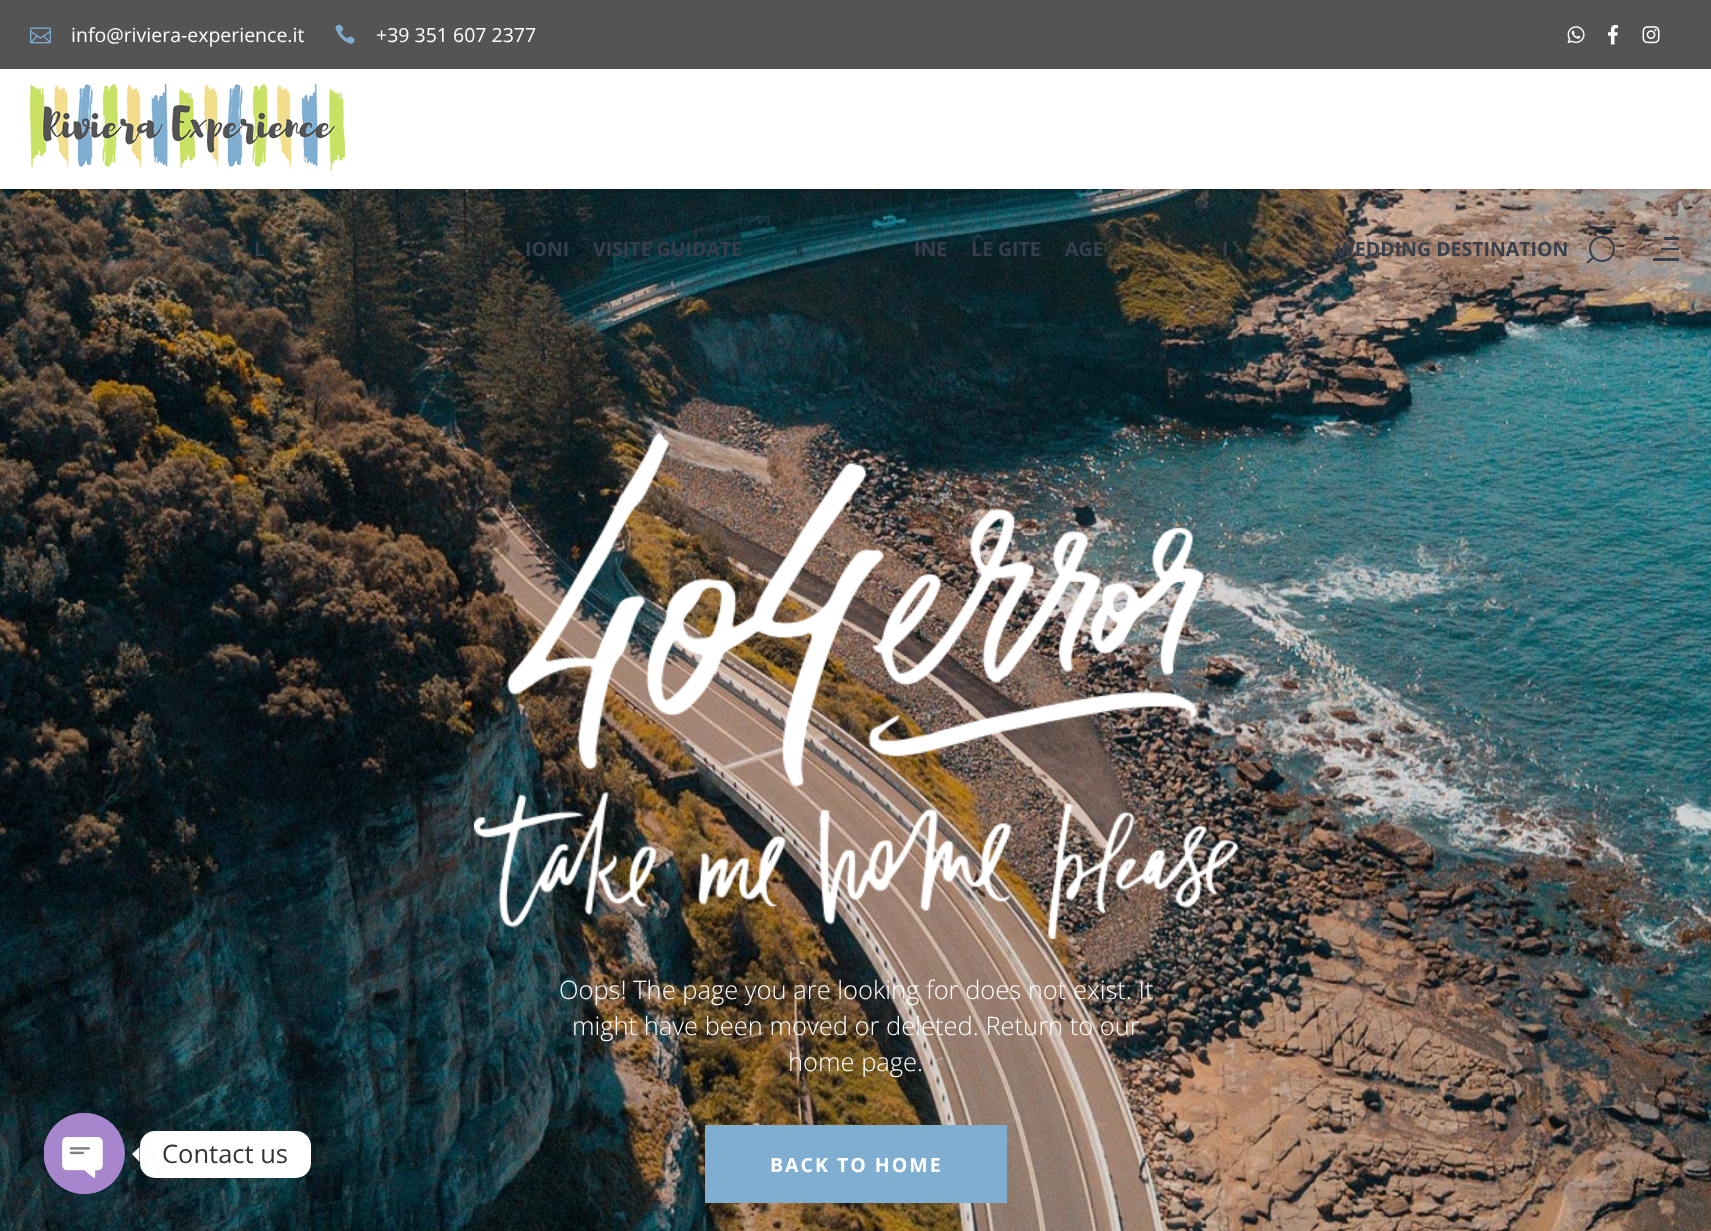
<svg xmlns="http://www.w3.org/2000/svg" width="1711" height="1231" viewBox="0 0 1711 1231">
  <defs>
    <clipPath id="clip1"><path d="M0 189h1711v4H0z"/></clipPath>
  </defs>
  <rect width="100%" height="100%" fill="#fff"/>
  <image x="0" y="189" width="1711" height="1042" href="img/7.png"/>
  <g clip-path="url(#clip1)">
    <path d="M0 71h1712v120H0z" fill="#00000026" filter="blur(2px)"/>
  </g>
  <path d="M0 0h1711v69H0z" fill="#545454"/>
  <image x="30" y="27" width="21" height="17" href="img/1.png"/>
  <image x="335" y="24" width="20" height="20" href="img/2.png"/>
  <image x="1567" y="26" width="18" height="18" href="img/3.png"/>
  <image x="1608" y="24" width="11" height="21" href="img/4.png"/>
  <image x="1642" y="26" width="18" height="18" href="img/5.png"/>
  <image x="30" y="84" width="315" height="88" href="img/6.png"/>
  <circle cx="1602" cy="249" r="12" fill="none" stroke="#373e4c" stroke-width="2.1"/>
  <path d="M1594 257L1587 263" fill="none" stroke="#373e4c" stroke-width="2.1"/>
  <path d="M1664 237h15v3H1664z" fill="#373e4c"/>
  <path d="M1661 248h18v2H1661z" fill="#373e4c"/>
  <path d="M1653 258h26v3H1653z" fill="#373e4c"/>
  <image x="474" y="433" width="764" height="506" href="img/8.png"/>
  <path d="M705 1125h302v78H705z" fill="#80aed1"/>
  <rect x="140" y="1133" width="171" height="46" rx="15" fill="#00000026" filter="blur(6px)"/>
  <rect x="140" y="1131" width="171" height="47" rx="15" fill="#fff"/>
  <path d="M139.5 1147V1162L132 1154Z" fill="#fff"/>
  <rect x="44" y="1137" width="81" height="81" rx="40.5" fill="#49687e29" filter="blur(18px)"/>
  <circle cx="84.5" cy="1153.5" r="40.5" fill="#a886cd"/>
  <image x="44" y="1113" width="72" height="81" href="img/9.png"/>
  <g font-family="Open Sans" font-size="19.5" fill="#fff">
    <text x="71" y="42">info@riviera-experience.it</text>
    <text x="376" y="42">+39 351 607 2377</text>
  </g>
  <g font-family="Open Sans" font-size="19.5" font-weight="bold" fill="#373e4c">
    <text x="254" y="256">L</text>
    <text x="525" y="256">IONI</text>
    <text x="593" y="256">VISITE GUIDATE</text>
    <text x="914" y="256">INE</text>
    <text x="971" y="256">LE GITE</text>
    <text x="1065" y="256">AGE</text>
    <text x="1222" y="256">I</text>
    <text x="1336" y="256">WEDDING DESTINATION</text>
  </g>
  <g font-family="Open Sans" font-size="25.5" font-weight="300" fill="#fff">
    <text x="559" y="999">Oops! The page you are looking for does not exist. It</text>
    <text x="572" y="1035">might have been moved or deleted. Return to our</text>
    <text x="788" y="1071">home page.</text>
  </g>
  <text x="770" y="1172" font-family="Open Sans" font-size="19.5" font-weight="bold" letter-spacing="2" fill="#fff">BACK TO HOME</text>
  <text x="162" y="1163" font-family="Open Sans" font-size="25.5" fill="#333">Contact us</text>
</svg>
